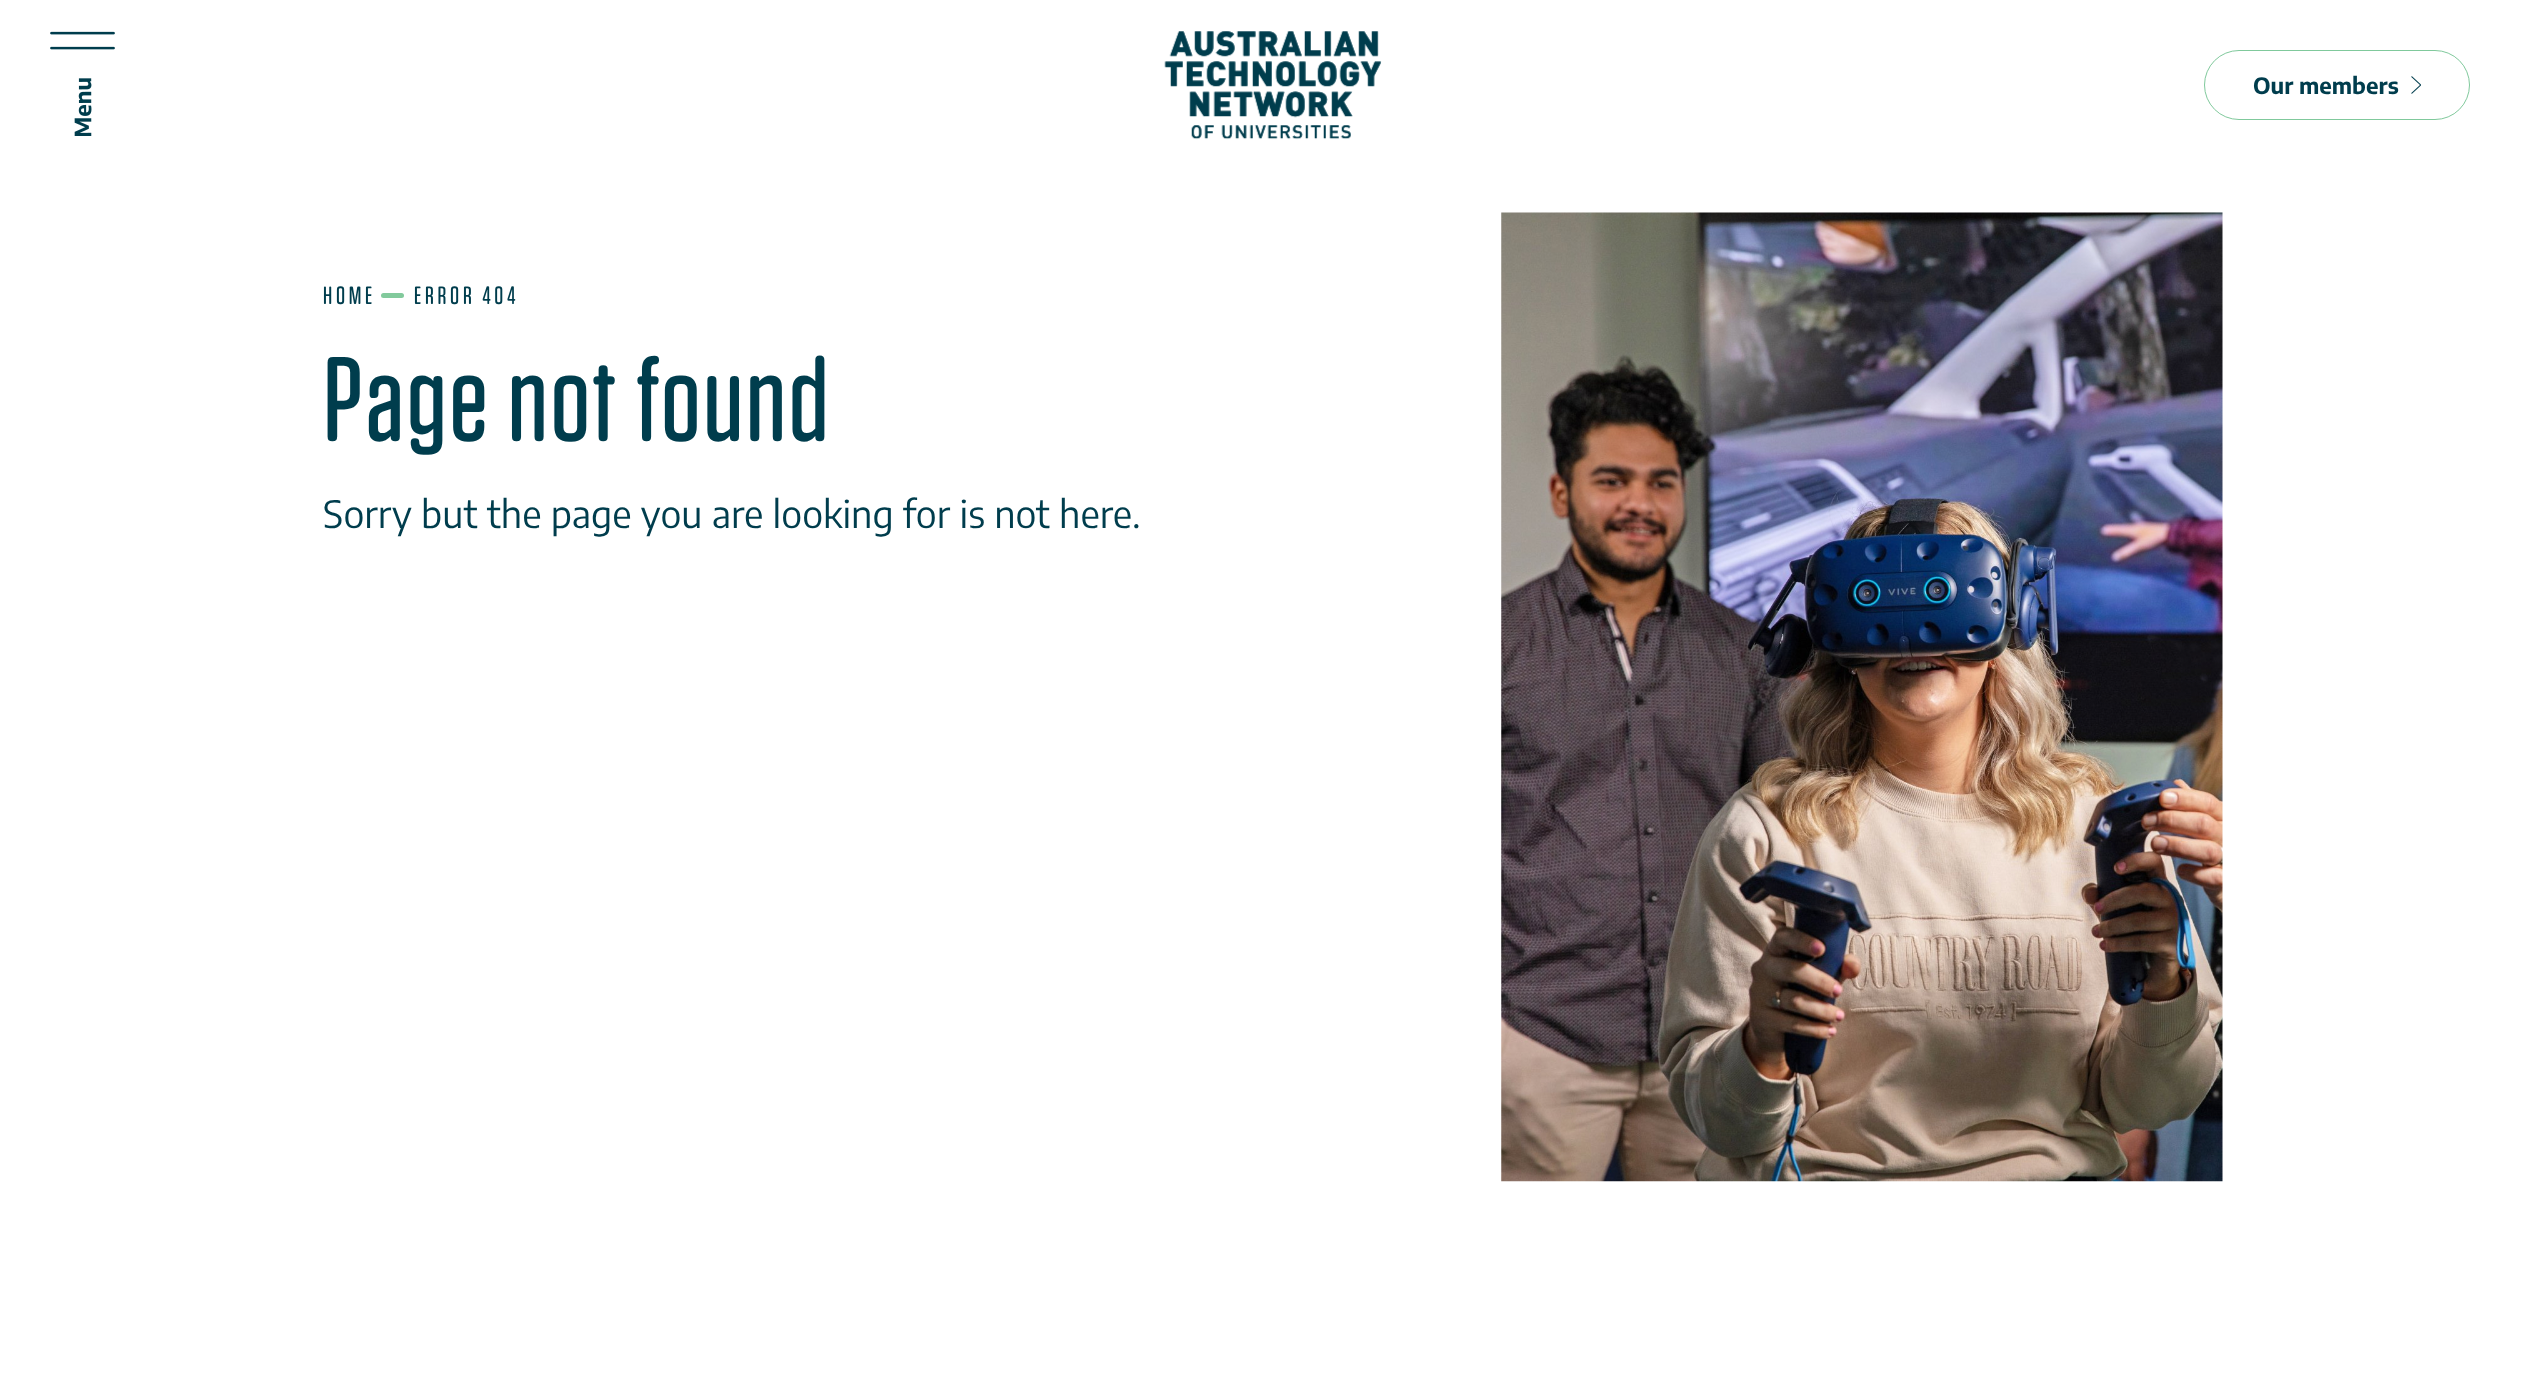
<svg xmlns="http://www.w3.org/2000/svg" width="2544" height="1381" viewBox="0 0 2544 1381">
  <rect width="100%" height="100%" fill="#fff"/>
  <image x="50" y="31" width="65" height="105" href="img/1.png"/>
  <image x="1164" y="31" width="218" height="109" href="img/2.png"/>
  <rect x="2204.5" y="50.5" width="265" height="69" rx="34.5" fill="none" stroke="#80c99c"/>
  <image x="2411" y="76" width="10" height="18" href="img/3.png"/>
  <rect x="381" y="293" width="23" height="5" rx="2.5" fill="#82ca9c"/>
  <image x="1501" y="212" width="722" height="970" href="img/4.png"/>
  <text x="2253" y="94" font-family="Encode Sans Condensed" font-size="22.5" font-weight="bold" fill="#003d4d">Our members</text>
  <g font-family="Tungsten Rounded" font-size="25" font-weight="500" letter-spacing="3.75" fill="#003d4d">
    <text x="323" y="304">HOME</text>
    <text x="414" y="304">ERROR 404</text>
  </g>
  <text x="323" y="441" font-family="Tungsten Rounded" font-size="120" font-weight="500" letter-spacing="2.7" fill="#003d4d">Page not found</text>
  <text x="323" y="528" font-family="Encode Sans Condensed" font-size="37.5" fill="#003d4d">Sorry but the page you are looking for is not here.</text>
</svg>
